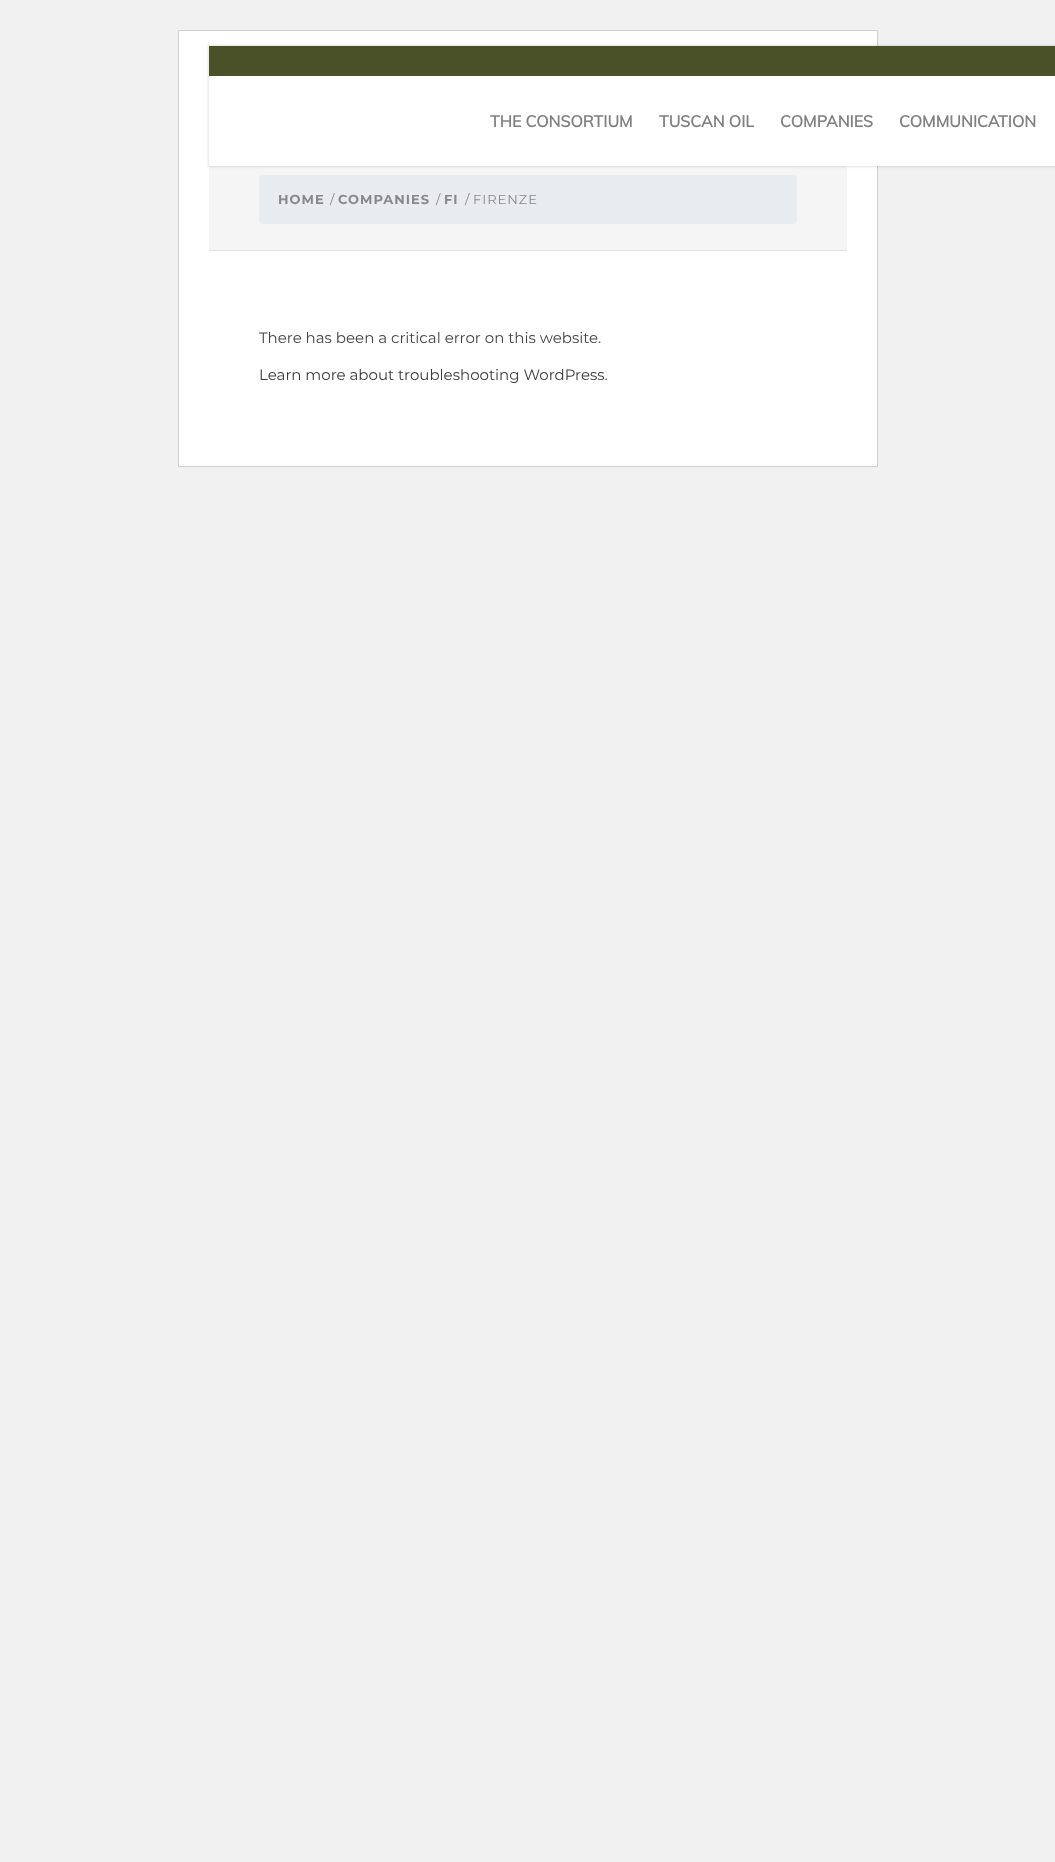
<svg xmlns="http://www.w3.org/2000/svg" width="1055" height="1862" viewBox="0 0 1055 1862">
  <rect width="100%" height="100%" fill="#f1f1f1"/>
  <path d="M178.5 30.5h699v436H178.5z" fill="#fff" stroke="#ccd0d4"/>
  <path d="M209 166h638v84H209z" fill="#f5f5f5"/>
  <path d="M208 45h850v122H208z" fill="#0000001a" filter="blur(1px)"/>
  <path d="M209 46h846v30H209z" fill="#4a5129"/>
  <path d="M209 76h846v90H209z" fill="#fff"/>
  <rect x="259" y="175" width="538" height="49" rx="4" fill="#e9ecef"/>
  <path d="M209 250h638v1H209z" fill="#e1e1e1"/>
  <g font-family="Muli" font-size="16" font-weight="bold" fill="#808080">
    <text x="490" y="127">THE CONSORTIUM</text>
    <text x="659" y="127">TUSCAN OIL</text>
    <text x="780" y="127">COMPANIES</text>
    <text x="899" y="127">COMMUNICATION</text>
  </g>
  <text x="278" y="204" font-family="Montserrat" font-size="13" font-weight="bold" letter-spacing="1" fill="#888">HOME</text>
  <text x="330" y="204" font-family="Montserrat" font-size="13" font-weight="100" letter-spacing="1" fill="#888">/</text>
  <text x="338" y="204" font-family="Montserrat" font-size="13" font-weight="bold" letter-spacing="1" fill="#888">COMPANIES</text>
  <text x="436" y="204" font-family="Montserrat" font-size="13" font-weight="100" letter-spacing="1" fill="#888">/</text>
  <text x="444" y="204" font-family="Montserrat" font-size="13" font-weight="bold" letter-spacing="1" fill="#888">FI</text>
  <g font-family="Montserrat" font-size="13" font-weight="100" letter-spacing="1" fill="#888">
    <text x="465" y="204">/</text>
    <text x="473" y="204">FIRENZE</text>
  </g>
  <text x="259" y="343" font-family="Montserrat" font-size="15" font-weight="100" fill="#444">There has been a critical error on this website.</text>
  <text x="259" y="380" font-family="Montserrat" font-size="15" font-weight="100" fill="#3a3a3a">Learn more about troubleshooting WordPress.</text>
</svg>
